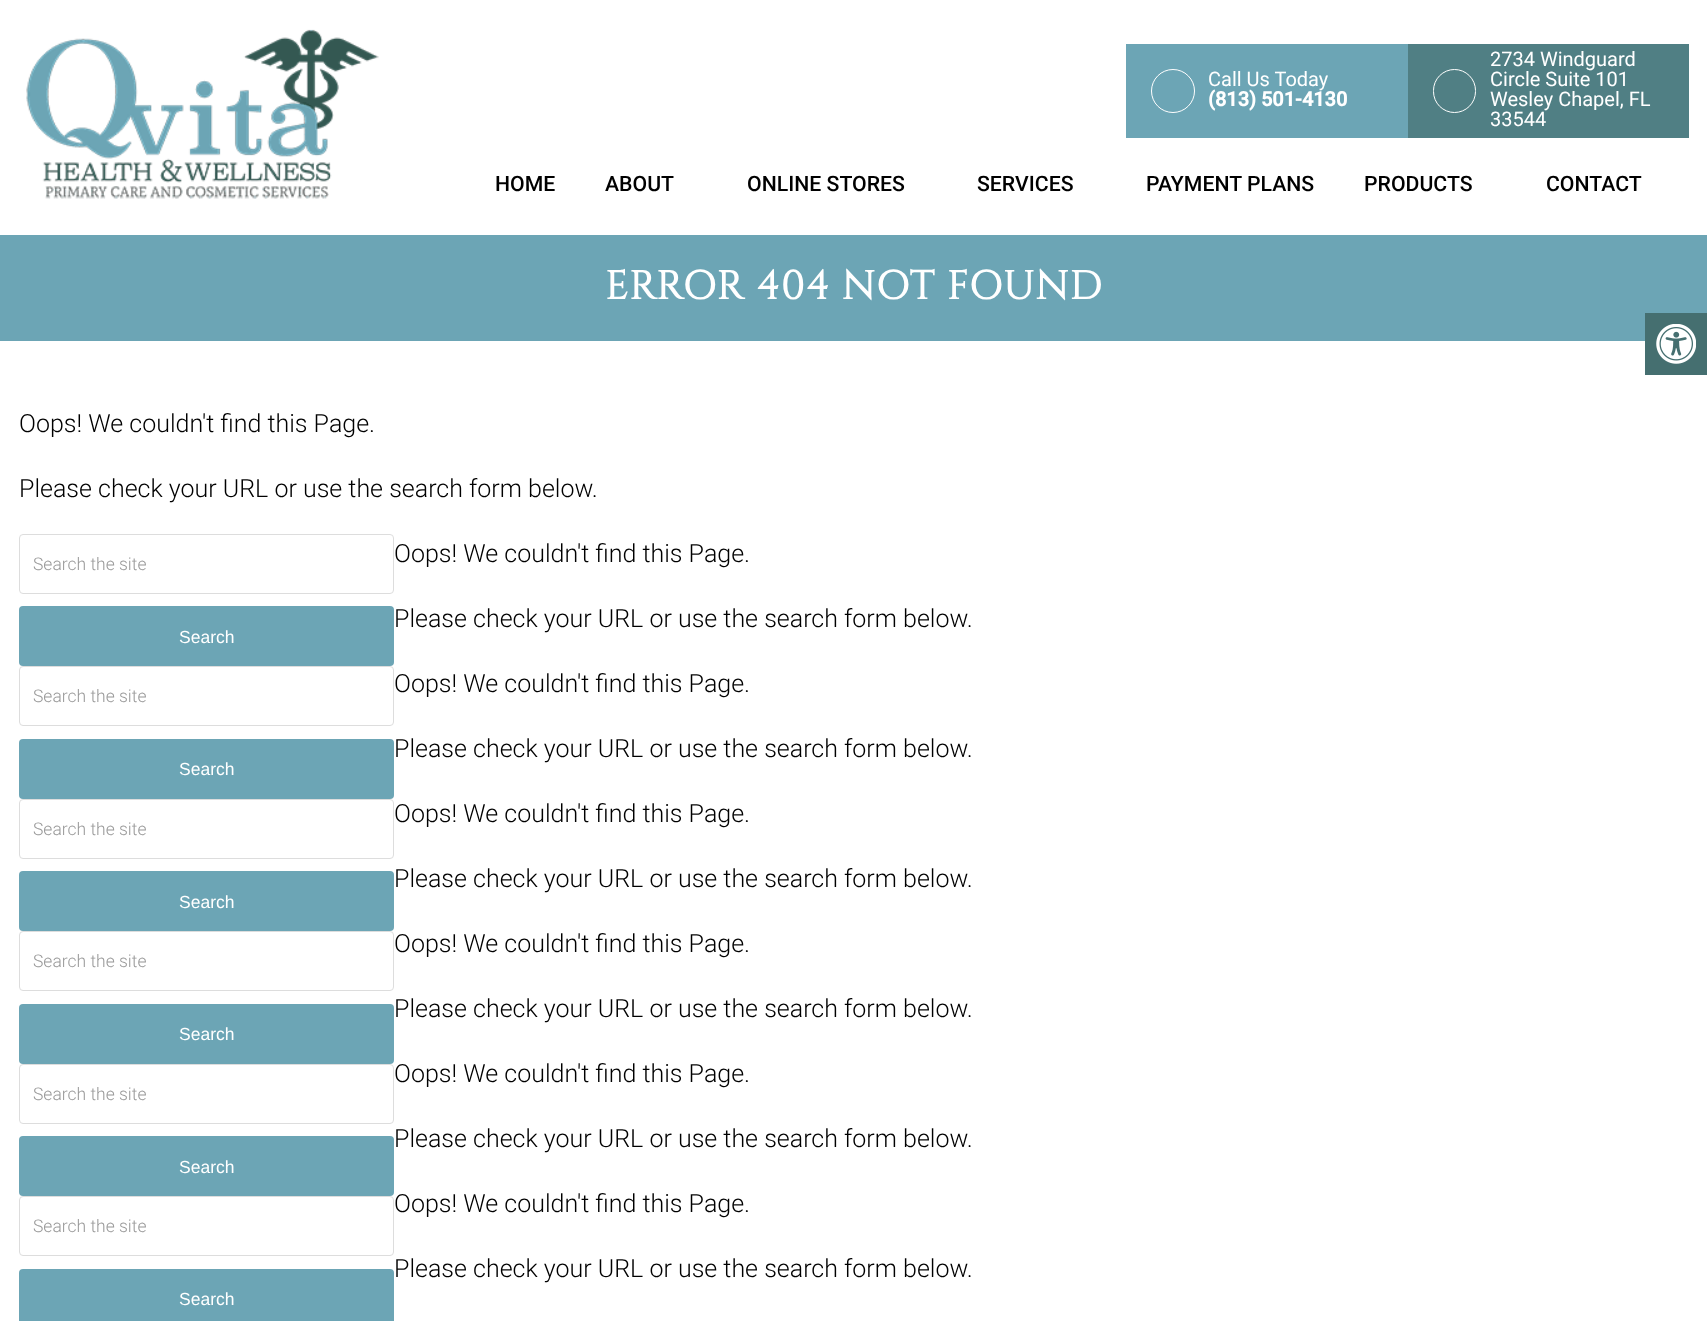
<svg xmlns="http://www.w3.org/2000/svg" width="1707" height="1321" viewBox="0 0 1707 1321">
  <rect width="100%" height="100%" fill="#fff"/>
  <image x="26" y="29" width="353" height="170" href="img/1.png"/>
  <path d="M1126 44h282v94H1126z" fill="#6ca5b5"/>
  <circle cx="1173" cy="91" r="21.5" fill="none" stroke="#fff"/>
  <path d="M1408 44h281v94H1408z" fill="#507f84"/>
  <rect x="1433.5" y="69.5" width="42" height="43" rx="21" fill="none" stroke="#fff"/>
  <path d="M0 235h1707v106H0z" fill="#6ca5b5"/>
  <rect x="19.5" y="534.5" width="374" height="59" rx="3.5" fill="none" stroke="#ddd"/>
  <rect x="19" y="606" width="375" height="60" rx="4" fill="#6ca5b5"/>
  <rect x="19.5" y="666.5" width="374" height="59" rx="3.5" fill="none" stroke="#ddd"/>
  <rect x="19" y="739" width="375" height="60" rx="4" fill="#6ca5b5"/>
  <rect x="19.5" y="799.5" width="374" height="59" rx="3.5" fill="none" stroke="#ddd"/>
  <rect x="19" y="871" width="375" height="60" rx="4" fill="#6ca5b5"/>
  <rect x="19.5" y="931.5" width="374" height="59" rx="3.5" fill="none" stroke="#ddd"/>
  <rect x="19" y="1004" width="375" height="60" rx="4" fill="#6ca5b5"/>
  <rect x="19.5" y="1064.5" width="374" height="59" rx="3.5" fill="none" stroke="#ddd"/>
  <rect x="19" y="1136" width="375" height="60" rx="4" fill="#6ca5b5"/>
  <rect x="19.5" y="1196.5" width="374" height="59" rx="3.5" fill="none" stroke="#ddd"/>
  <rect x="19" y="1269" width="375" height="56" rx="4" fill="#6ca5b5"/>
  <path d="M1645 313h62v62H1645z" fill="#456f70"/>
  <image x="1656" y="324" width="40" height="40" href="img/2.png"/>
  <text x="1208" y="86" font-family="Roboto" font-size="20" fill="#fff">Call Us Today</text>
  <text x="1208" y="106" font-family="Roboto" font-size="20" font-weight="bold" fill="#fff">(813) 501-4130</text>
  <g font-family="Roboto" font-size="20" fill="#fff">
    <text x="1490" y="66">2734 Windguard</text>
    <text x="1490" y="86">Circle Suite 101</text>
    <text x="1490" y="106">Wesley Chapel, FL</text>
    <text x="1490" y="126">33544</text>
  </g>
  <g font-family="Roboto" font-size="21.25" font-weight="500" fill="#000">
    <text x="495" y="191">HOME</text>
    <text x="605" y="191">ABOUT</text>
    <text x="747" y="191">ONLINE STORES</text>
    <text x="977" y="191">SERVICES</text>
    <text x="1146" y="191">PAYMENT PLANS</text>
    <text x="1364" y="191">PRODUCTS</text>
    <text x="1546" y="191">CONTACT</text>
  </g>
  <text x="605" y="299" font-family="Cinzel" font-size="40" font-weight="bold" letter-spacing="1.25" fill="#fff">ERROR 404 NOT FOUND</text>
  <g font-family="Roboto" font-size="25" font-weight="300" fill="#000">
    <text x="19" y="432">Oops! We couldn't find this Page.</text>
    <text x="19" y="497">Please check your URL or use the search form below.</text>
  </g>
  <text x="33" y="570" font-family="Roboto" font-size="17.5" font-weight="300" fill="#999">Search the site</text>
  <text x="179" y="643" font-family="Liberation Sans" font-size="17.5" fill="#fff">Search</text>
  <g font-family="Roboto" font-size="25" font-weight="300" fill="#000">
    <text x="394" y="562">Oops! We couldn't find this Page.</text>
    <text x="394" y="627">Please check your URL or use the search form below.</text>
  </g>
  <text x="33" y="702" font-family="Roboto" font-size="17.5" font-weight="300" fill="#999">Search the site</text>
  <text x="179" y="775" font-family="Liberation Sans" font-size="17.5" fill="#fff">Search</text>
  <g font-family="Roboto" font-size="25" font-weight="300" fill="#000">
    <text x="394" y="692">Oops! We couldn't find this Page.</text>
    <text x="394" y="757">Please check your URL or use the search form below.</text>
  </g>
  <text x="33" y="835" font-family="Roboto" font-size="17.5" font-weight="300" fill="#999">Search the site</text>
  <text x="179" y="908" font-family="Liberation Sans" font-size="17.5" fill="#fff">Search</text>
  <g font-family="Roboto" font-size="25" font-weight="300" fill="#000">
    <text x="394" y="822">Oops! We couldn't find this Page.</text>
    <text x="394" y="887">Please check your URL or use the search form below.</text>
  </g>
  <text x="33" y="967" font-family="Roboto" font-size="17.5" font-weight="300" fill="#999">Search the site</text>
  <text x="179" y="1040" font-family="Liberation Sans" font-size="17.5" fill="#fff">Search</text>
  <g font-family="Roboto" font-size="25" font-weight="300" fill="#000">
    <text x="394" y="952">Oops! We couldn't find this Page.</text>
    <text x="394" y="1017">Please check your URL or use the search form below.</text>
  </g>
  <text x="33" y="1100" font-family="Roboto" font-size="17.5" font-weight="300" fill="#999">Search the site</text>
  <text x="179" y="1173" font-family="Liberation Sans" font-size="17.5" fill="#fff">Search</text>
  <g font-family="Roboto" font-size="25" font-weight="300" fill="#000">
    <text x="394" y="1082">Oops! We couldn't find this Page.</text>
    <text x="394" y="1147">Please check your URL or use the search form below.</text>
  </g>
  <text x="33" y="1232" font-family="Roboto" font-size="17.5" font-weight="300" fill="#999">Search the site</text>
  <text x="179" y="1305" font-family="Liberation Sans" font-size="17.5" fill="#fff">Search</text>
  <g font-family="Roboto" font-size="25" font-weight="300" fill="#000">
    <text x="394" y="1212">Oops! We couldn't find this Page.</text>
    <text x="394" y="1277">Please check your URL or use the search form below.</text>
  </g>
</svg>
